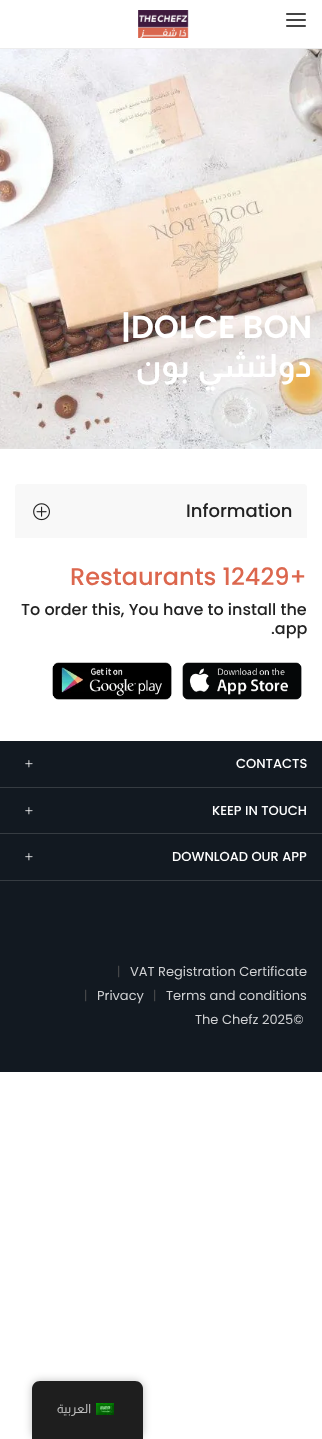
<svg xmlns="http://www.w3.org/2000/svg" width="322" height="1439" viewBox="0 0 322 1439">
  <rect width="100%" height="100%" fill="#fff"/>
  <path d="M0 48h322v1H0z" fill="#ededed"/>
  <image x="138" y="10" width="51" height="28" href="img/1.png"/>
  <image x="286" y="13" width="20" height="14" href="img/2.png"/>
  <image x="0" y="49" width="322" height="400" href="img/3.png"/>
  <path d="M18 484H304C305.5 484 307 485.5 307 487V538H15V487C15 485.5 16.5 484 18 484Z" fill="#f8f8f8"/>
  <image x="33" y="503" width="17" height="18" href="img/4.png"/>
  <image x="52" y="662" width="120" height="38" href="img/5.png"/>
  <image x="182" y="662" width="120" height="38" href="img/6.png"/>
  <path d="M0 741h322v331H0z" fill="#121921"/>
  <path d="M0 787h322v1H0z" fill="#363c42"/>
  <image x="25" y="760" width="8" height="8" href="img/7.png"/>
  <path d="M0 833h322v1H0z" fill="#363c42"/>
  <image x="25" y="807" width="8" height="8" href="img/7.png"/>
  <path d="M0 880h322v1H0z" fill="#363c42"/>
  <image x="25" y="853" width="8" height="8" href="img/7.png"/>
  <rect x="32" y="1381" width="111" height="58" rx="8" fill="#00000040" filter="blur(4px)"/>
  <path d="M40 1381H135C139.5 1381 143 1384.5 143 1389V1439H32V1389C32 1384.5 35.5 1381 40 1381Z" fill="#1e1e1e"/>
  <image x="96" y="1403" width="18" height="12" href="img/8.png"/>
  <text x="121" y="338" font-family="Poppins" font-size="32" font-weight="600" fill="#fff">|DOLCE BON</text>
  <text x="312" y="377" word-spacing="2" font-family="Almarai" font-size="32" font-weight="bold" direction="rtl" fill="#fff">دولتشي بون</text>
  <text x="186" y="517" font-family="Poppins" font-size="18" font-weight="500" fill="#222">Information</text>
  <text x="70" y="585" font-family="Poppins" font-size="24" font-weight="500" fill="#dc674e">Restaurants 12429+</text>
  <g font-family="Poppins" font-size="16" font-weight="500" fill="#222">
    <text x="21" y="615">To order this, You have to install the</text>
    <text x="271" y="634">.app</text>
  </g>
  <g font-family="Poppins" font-size="13" font-weight="500" fill="#fff">
    <text x="236" y="768">CONTACTS</text>
    <text x="212" y="815">KEEP IN TOUCH</text>
    <text x="172" y="861">DOWNLOAD OUR APP</text>
  </g>
  <text x="117" y="976" font-family="Poppins" font-size="13" font-weight="300" fill="#555">|</text>
  <text x="130" y="976" font-family="Poppins" font-size="13" fill="#d0d1d3">VAT Registration Certificate</text>
  <text x="84" y="1000" font-family="Poppins" font-size="13" font-weight="300" fill="#555">|</text>
  <text x="97" y="1000" font-family="Poppins" font-size="13" fill="#d0d1d3">Privacy</text>
  <text x="153" y="1000" font-family="Poppins" font-size="13" font-weight="300" fill="#555">|</text>
  <g font-family="Poppins" font-size="13" fill="#d0d1d3">
    <text x="166" y="1000">Terms and conditions</text>
    <text x="195" y="1024">The Chefz 2025©</text>
  </g>
  <text x="91" y="1413" font-family="Almarai" font-size="12.5" direction="rtl" fill="#bdbdbd">العربية</text>
</svg>
